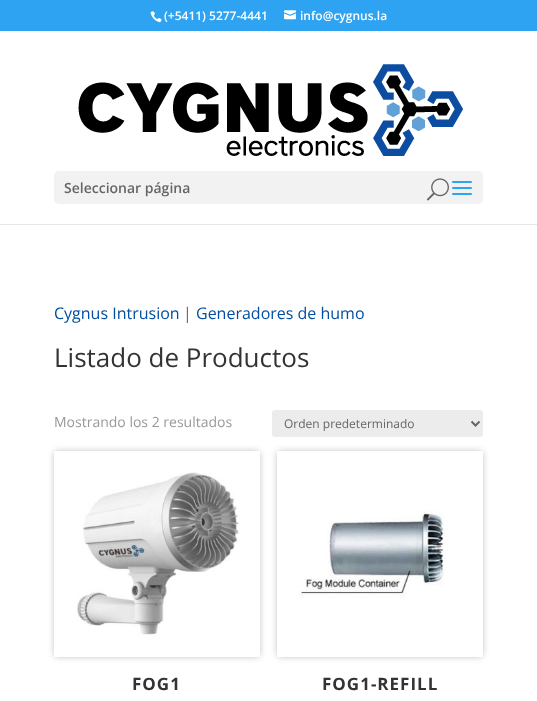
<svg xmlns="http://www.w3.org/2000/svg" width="537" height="701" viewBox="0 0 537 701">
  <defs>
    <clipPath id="clip1"><path d="M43 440H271V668H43ZM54 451H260V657H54Z" clip-rule="evenodd"/></clipPath>
    <clipPath id="clip2"><path d="M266 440H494V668H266ZM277 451H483V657H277Z" clip-rule="evenodd"/></clipPath>
  </defs>
  <rect width="100%" height="100%" fill="#fff"/>
  <path d="M0 0h537v31H0z" fill="#2ea3f2"/>
  <image x="150" y="11" width="12" height="12" href="img/1.png"/>
  <image x="284" y="10" width="12" height="10" href="img/2.png"/>
  <path d="M0 224h537v1H0z" fill="#e6e6e6"/>
  <image x="78" y="64" width="385" height="92" href="img/3.png"/>
  <rect x="54" y="171" width="429" height="33" rx="5" fill="#f2f2f2"/>
  <image x="452" y="181" width="20" height="14" href="img/4.png"/>
  <image x="426" y="178" width="23" height="23" href="img/5.png"/>
  <rect x="272" y="410" width="211" height="27" rx="3" fill="#ececec"/>
  <path d="M471.5 421.5L475.5 425.5L479.5 421.5" fill="none" stroke="#666" stroke-width="2"/>
  <g clip-path="url(#clip1)">
    <path d="M55 452h204v204H55z" fill="#0000004d" filter="blur(3.5px)"/>
  </g>
  <image x="76" y="472" width="165" height="164" href="img/6.png"/>
  <g clip-path="url(#clip2)">
    <path d="M278 452h204v204H278z" fill="#0000004d" filter="blur(3.5px)"/>
  </g>
  <image x="299" y="510" width="147" height="88" href="img/7.png"/>
  <g font-family="Open Sans" font-size="12" font-weight="600" fill="#fff">
    <text x="164" y="20">(+5411) 5277-4441</text>
    <text x="300" y="20">info@cygnus.la</text>
  </g>
  <text x="64" y="193" font-family="Open Sans" font-size="14" font-weight="600" fill="#666">Seleccionar página</text>
  <text x="54" y="319" font-family="Open Sans" font-size="16" fill="#034ea2">Cygnus Intrusion</text>
  <text x="183" y="319" font-family="Open Sans" font-size="16" fill="#666">|</text>
  <text x="196" y="319" font-family="Open Sans" font-size="16" fill="#034ea2">Generadores de humo</text>
  <text x="54" y="367" font-family="Open Sans" font-size="26" fill="#333">Listado de Productos</text>
  <text x="54" y="427" font-family="Open Sans" font-size="14" fill="#999">Mostrando los 2 resultados</text>
  <text x="284" y="428" font-family="Open Sans" font-size="12" fill="#666">Orden predeterminado</text>
  <g font-family="Open Sans" font-size="17" font-weight="bold" letter-spacing="1" fill="#333">
    <text x="132" y="690">FOG1</text>
    <text x="322" y="690">FOG1-REFILL</text>
  </g>
</svg>
